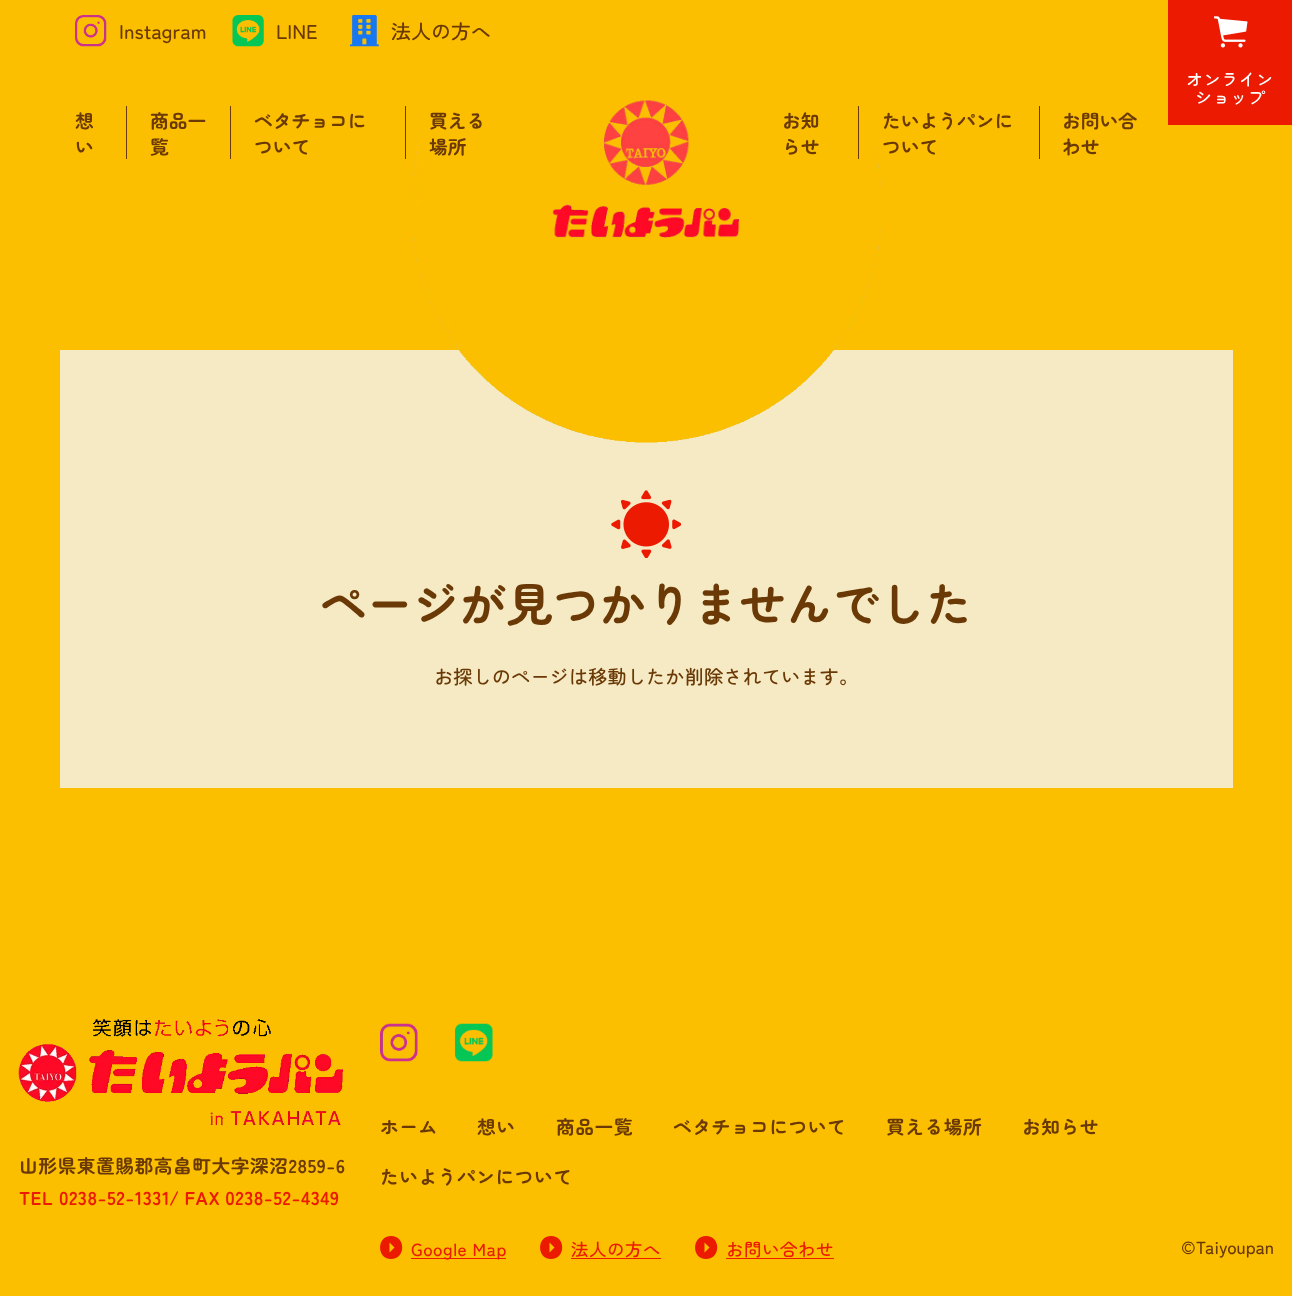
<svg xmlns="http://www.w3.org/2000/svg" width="1292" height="1296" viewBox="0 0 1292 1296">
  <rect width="100%" height="100%" fill="#fbbf00"/>
  <image x="75" y="15" width="32" height="32" href="img/1.png"/>
  <image x="232" y="15" width="32" height="32" href="img/2.png"/>
  <image x="350" y="15" width="29" height="32" href="img/3.png"/>
  <path d="M60 350h1173v438H60z" fill="#f5eac4"/>
  <image x="410" y="145" width="472" height="298" href="img/6.png"/>
  <image x="552" y="100" width="188" height="138" href="img/4.png"/>
  <path d="M126 106h1v53H126z" fill="#6a3906"/>
  <path d="M230 106h1v53H230z" fill="#6a3906"/>
  <path d="M405 106h1v53H405z" fill="#6a3906"/>
  <path d="M858 106h1v53H858z" fill="#6a3906"/>
  <path d="M1039 106h1v53H1039z" fill="#6a3906"/>
  <path d="M1168 0h124v125H1168z" fill="#eb1a00"/>
  <image x="1214" y="16" width="34" height="32" href="img/5.png"/>
  <image x="611" y="490" width="70" height="68" href="img/7.png"/>
  <image x="18" y="1019" width="325" height="107" href="img/8.png"/>
  <image x="380" y="1023" width="38" height="39" href="img/9.png"/>
  <image x="455" y="1023" width="38" height="39" href="img/10.png"/>
  <path d="M391 1259C406 1259 406 1236 391 1236C376.5 1236 376.5 1259 391 1259ZM389.5 1252.5V1242.5L394.5 1247.5Z" fill="#eb1a00"/>
  <path d="M411 1258h95v1H411z" fill="#eb1a00"/>
  <path d="M551 1259C566 1259 566 1236 551 1236C536.5 1236 536.5 1259 551 1259ZM549.5 1252.5V1242.5L554.5 1247.5Z" fill="#eb1a00"/>
  <path d="M571 1258h90v1H571z" fill="#eb1a00"/>
  <path d="M706 1259C721 1259 721 1236 706 1236C691.5 1236 691.5 1259 706 1259ZM704.5 1252.5V1242.5L709.5 1247.5Z" fill="#eb1a00"/>
  <path d="M726 1258h108v1H726z" fill="#eb1a00"/>
  <g font-family="Zen Maru Gothic" font-size="20" font-weight="500" fill="#6a3906">
    <text x="119" y="39">Instagram</text>
    <text x="276" y="39">LINE</text>
    <text x="391" y="39">法人の方へ</text>
  </g>
  <g font-family="Zen Maru Gothic" font-size="18.75" font-weight="bold" fill="#6a3906">
    <text x="75" y="128">想</text>
    <text x="75" y="154">い</text>
    <text x="150" y="128">商品一</text>
    <text x="150" y="154">覧</text>
    <text x="254" y="128">ベタチョコに</text>
    <text x="254" y="154">ついて</text>
    <text x="429" y="128">買える</text>
    <text x="429" y="154">場所</text>
    <text x="782" y="128">お知</text>
    <text x="782" y="154">らせ</text>
    <text x="882" y="128">たいようパンに</text>
    <text x="882" y="154">ついて</text>
    <text x="1062" y="128">お問い合</text>
    <text x="1062" y="154">わせ</text>
  </g>
  <g font-family="Zen Maru Gothic" font-size="17.5" font-weight="500" fill="#fff">
    <text x="1186" y="86">オンライン</text>
    <text x="1195" y="104">ショップ</text>
  </g>
  <text x="320" y="622" font-family="Zen Maru Gothic" font-size="46.6" font-weight="bold" fill="#6a3906">ページが見つかりませんでした</text>
  <text x="434" y="684" font-family="Zen Maru Gothic" font-size="19.3" font-weight="500" fill="#6a3906">お探しのページは移動したか削除されています。</text>
  <text x="19" y="1173" font-family="Zen Maru Gothic" font-size="18.75" font-weight="bold" letter-spacing="0.5" fill="#6a3906">山形県東置賜郡高畠町大字深沼2859-6</text>
  <g font-family="Zen Maru Gothic" font-size="18.75" font-weight="bold" letter-spacing="0.5" fill="#eb1a00">
    <text x="19" y="1205">TEL 0238-52-1331</text>
    <text x="169" y="1205" word-spacing="-1">/ FAX 0238-52-4349</text>
  </g>
  <g font-family="Zen Maru Gothic" font-size="18.75" font-weight="bold" letter-spacing="0.5" fill="#6a3906">
    <text x="380" y="1134">ホーム</text>
    <text x="477" y="1134">想い</text>
    <text x="556" y="1134">商品一覧</text>
    <text x="673" y="1134">ベタチョコについて</text>
    <text x="886" y="1134">買える場所</text>
    <text x="1022" y="1134">お知らせ</text>
    <text x="380" y="1184">たいようパンについて</text>
  </g>
  <g font-family="Zen Maru Gothic" font-size="17.5" font-weight="500" letter-spacing="0.5" fill="#eb1a00">
    <text x="411" y="1256">Google Map</text>
    <text x="571" y="1256">法人の方へ</text>
    <text x="726" y="1256">お問い合わせ</text>
  </g>
  <text x="1181" y="1254" font-family="Zen Maru Gothic" font-size="17.5" font-weight="500" fill="#6a3906">©︎Taiyoupan</text>
</svg>
